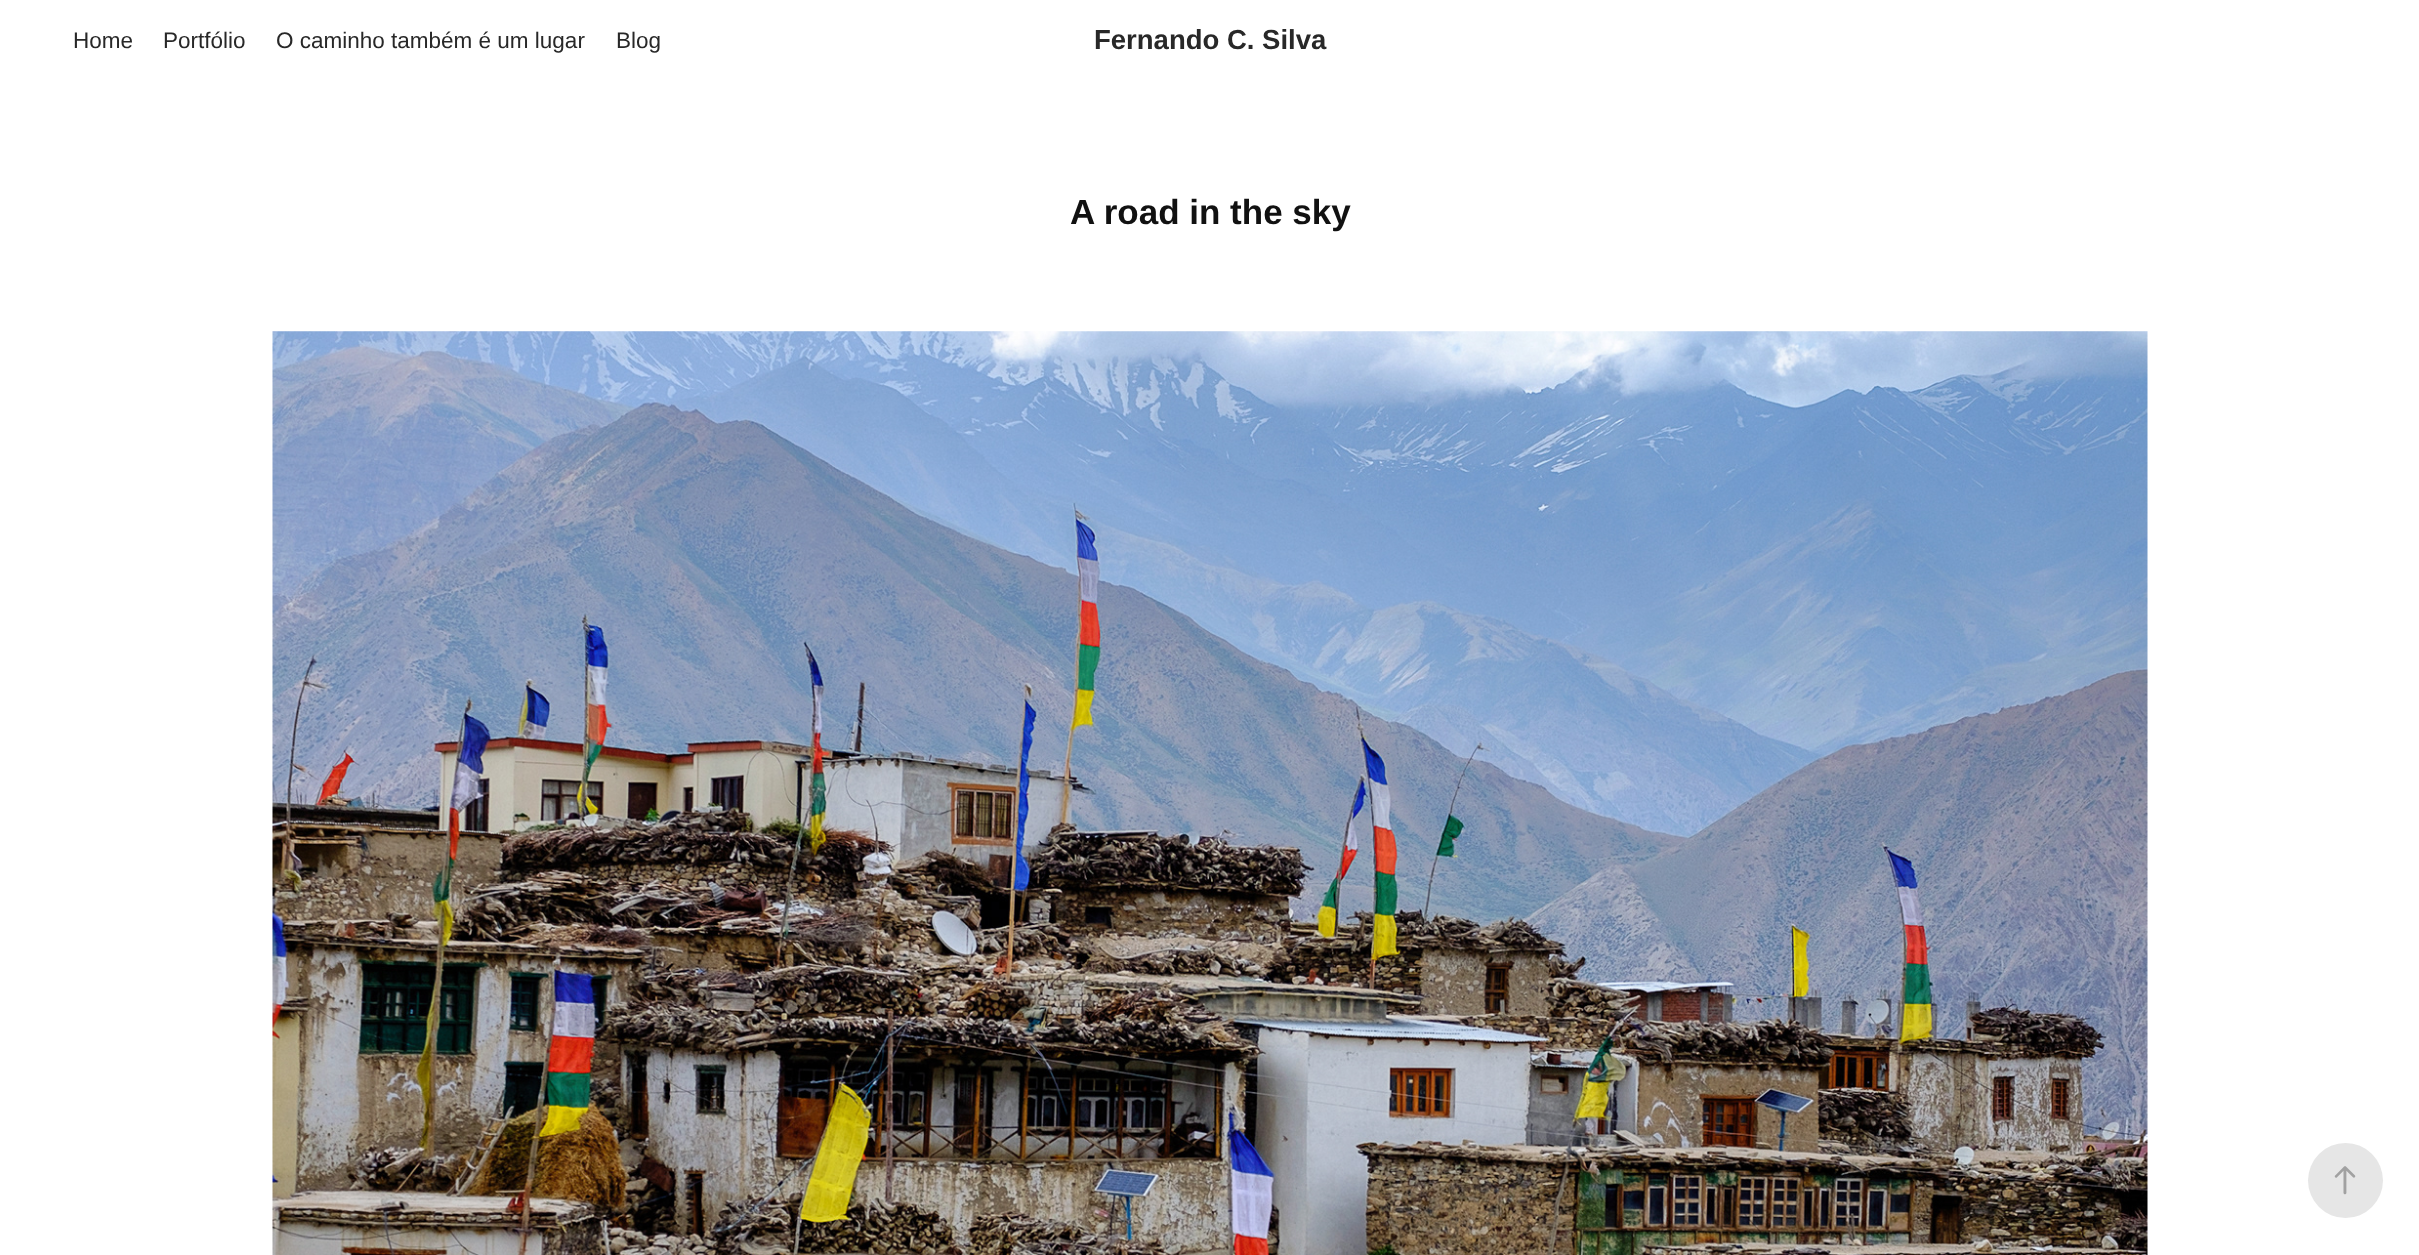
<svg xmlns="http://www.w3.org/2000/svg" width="2419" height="1255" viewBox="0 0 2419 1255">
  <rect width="100%" height="100%" fill="#fff"/>
  <image x="272" y="331" width="1876" height="924" href="img/1.png"/>
  <circle cx="2345.5" cy="1180.5" r="37.5" fill="#e6e6e6"/>
  <image x="2334" y="1166" width="22" height="29" href="img/2.png"/>
  <g font-family="Liberation Sans" font-size="22.5" fill="#282828">
    <text x="73" y="48">Home</text>
    <text x="163" y="48">Portfólio</text>
    <text x="276" y="48">O caminho também é um lugar</text>
    <text x="616" y="48">Blog</text>
  </g>
  <text x="1094" y="49" font-family="Liberation Sans" font-size="27.5" font-weight="bold" fill="#282828">Fernando C. Silva</text>
  <text x="1070" y="224" font-family="Liberation Sans" font-size="35" font-weight="bold" fill="#111">A road in the sky</text>
</svg>
